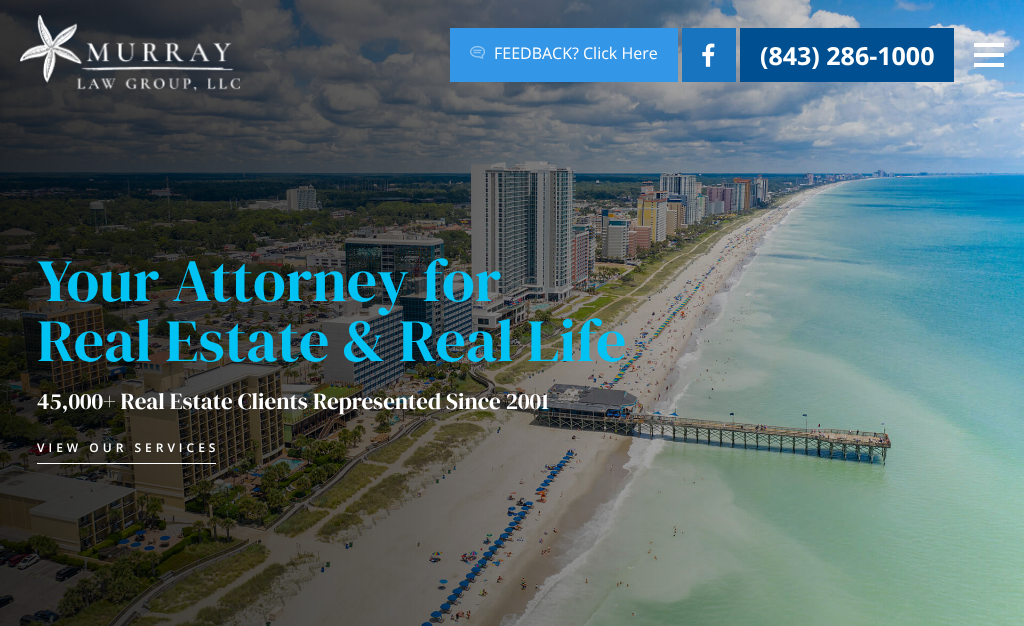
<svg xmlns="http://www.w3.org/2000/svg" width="1024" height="626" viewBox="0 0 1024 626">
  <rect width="100%" height="100%" fill="#fff"/>
  <image x="0" y="0" width="1024" height="626" href="img/4.png"/>
  <image x="20" y="15" width="220" height="76" href="img/1.png"/>
  <path d="M450 28h228v54H450z" fill="#3496e7"/>
  <image x="470" y="46" width="15" height="13" href="img/2.png"/>
  <path d="M682 28h54v54H682z" fill="#1974bf"/>
  <image x="702" y="43" width="13" height="24" href="img/3.png"/>
  <path d="M740 28h214v54H740z" fill="#005091"/>
  <path d="M974 53h30v4H974z" fill="#fff"/>
  <path d="M974 43h30v4H974z" fill="#fff"/>
  <path d="M974 63h30v4H974z" fill="#fff"/>
  <path d="M37 463h179v1H37z" fill="#fff"/>
  <text x="494" y="59" font-family="Open Sans" font-size="16" fill="#fff">FEEDBACK? Click Here</text>
  <text x="760" y="65" font-family="Open Sans" font-size="25" font-weight="bold" fill="#fff">(843) 286-1000</text>
  <g font-family="DM Serif Display" font-size="60" fill="#00c2f3">
    <text x="37" y="301">Your Attorney for</text>
    <text x="37" y="361">Real Estate &amp; Real Life</text>
  </g>
  <text x="37" y="409" font-family="DM Serif Display" font-size="23" fill="#fff">45,000+ Real Estate Clients Represented Since 2001</text>
  <text x="37" y="452" font-family="Open Sans" font-size="12" font-weight="600" letter-spacing="4" fill="#fff">VIEW OUR SERVICES</text>
</svg>
